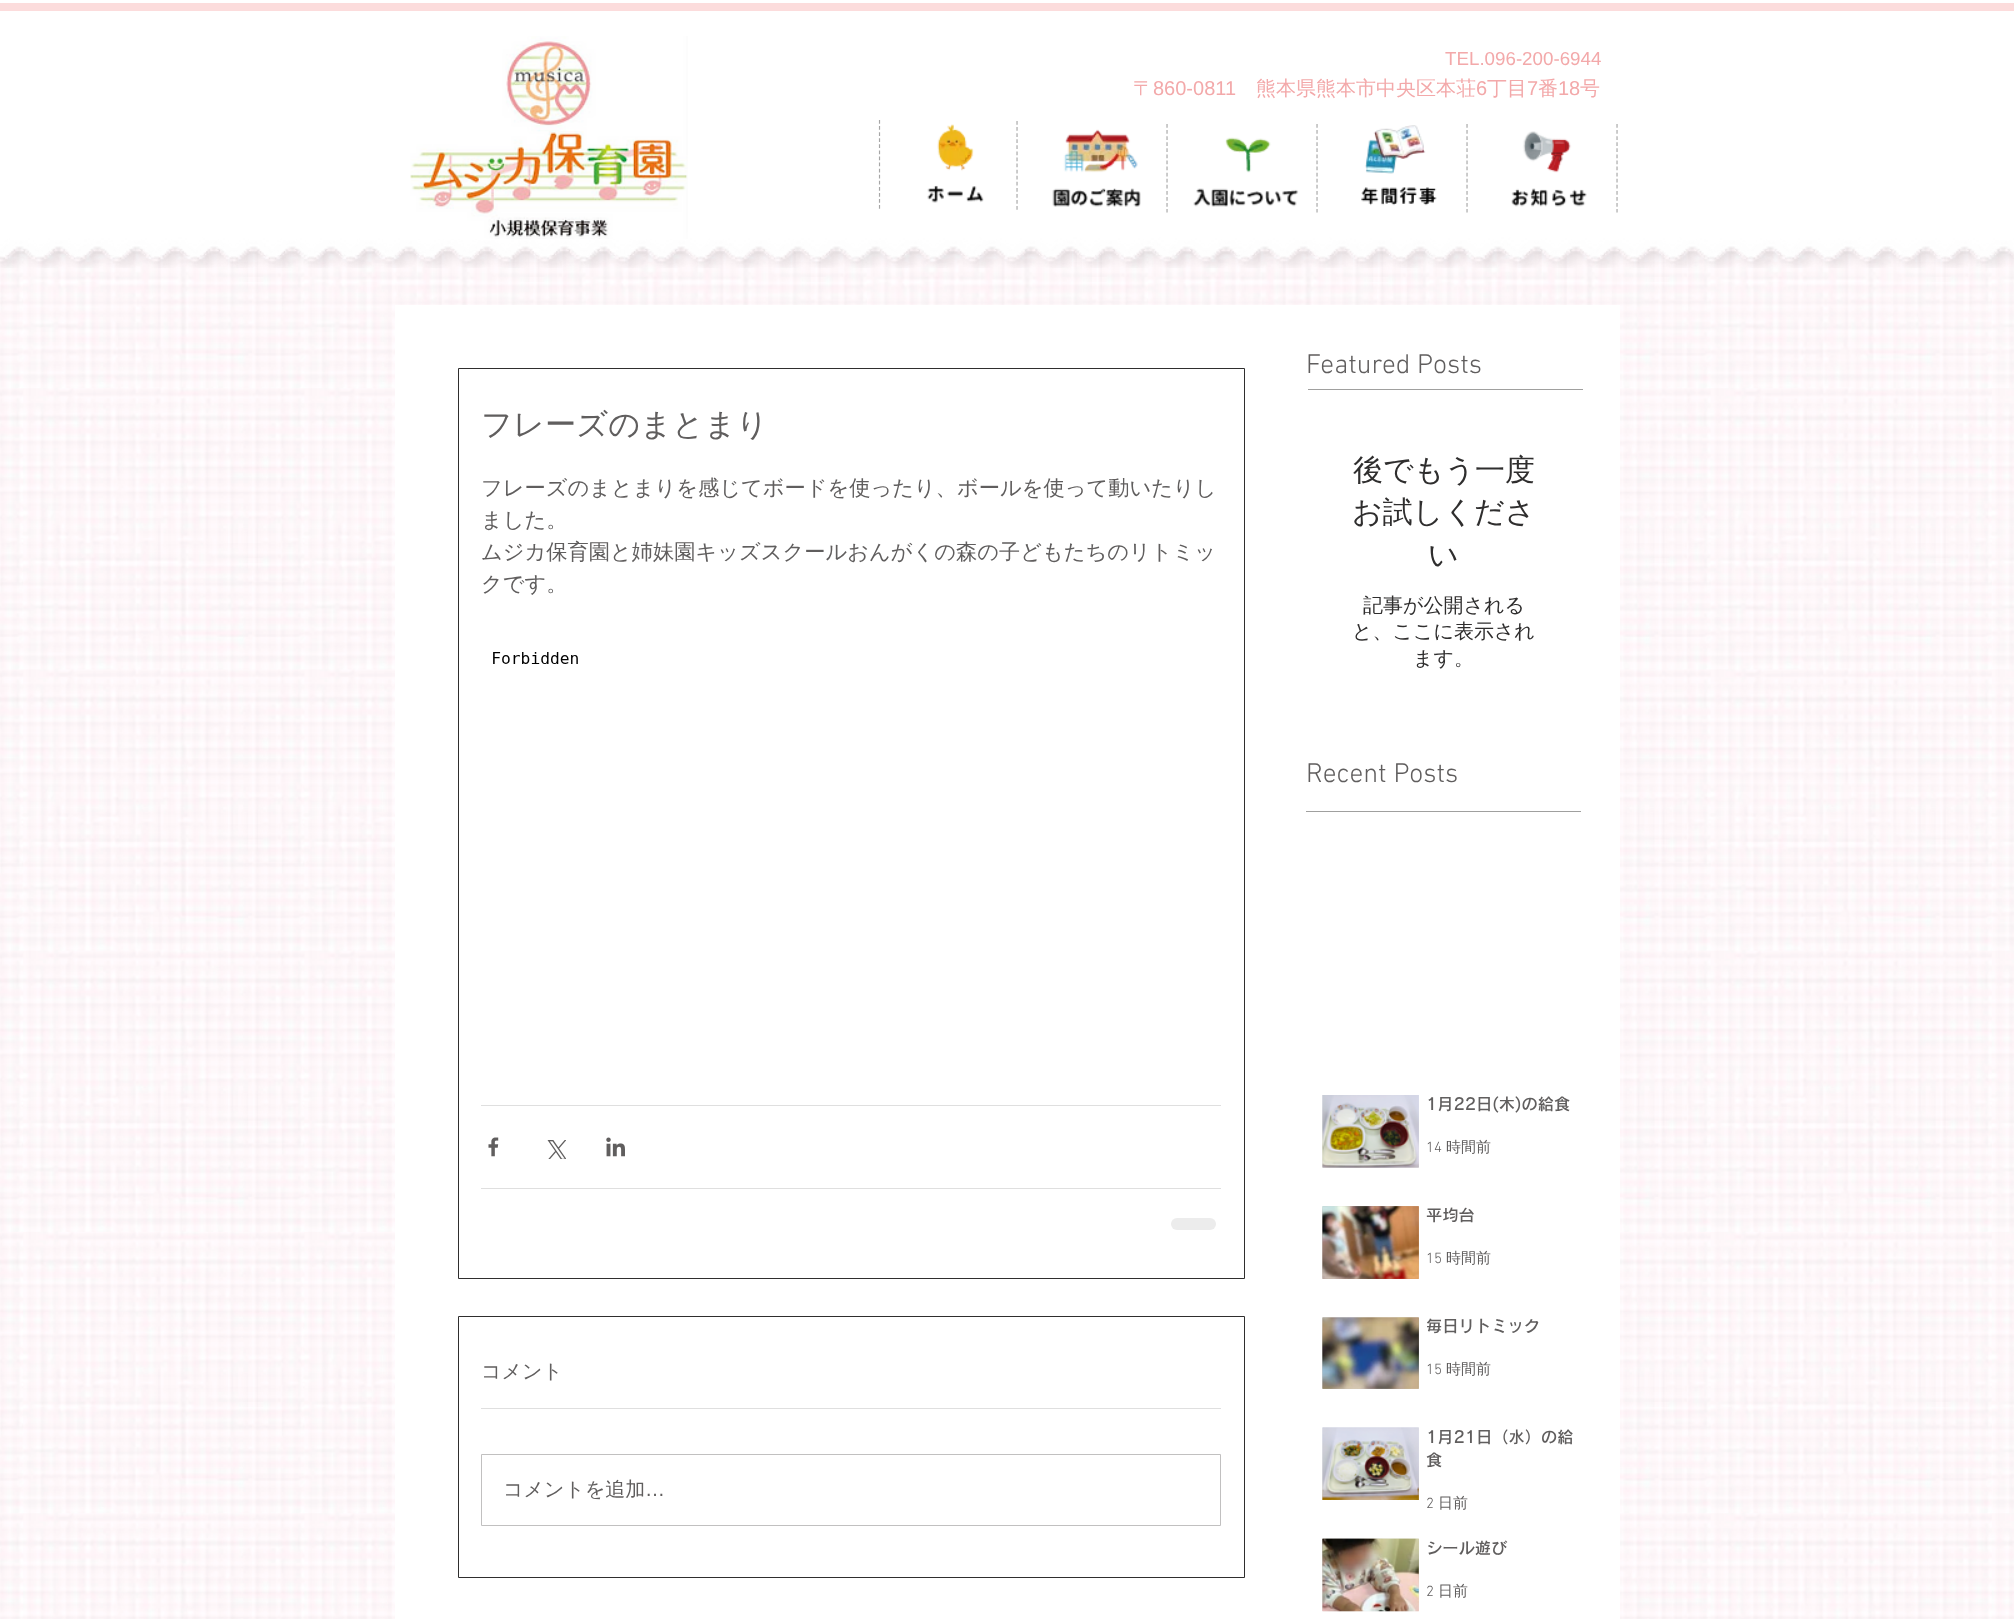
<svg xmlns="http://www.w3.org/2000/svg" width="2014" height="1619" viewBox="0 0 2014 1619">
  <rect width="100%" height="100%" fill="#fff"/>
  <image x="0" y="241" width="2014" height="1378" href="img/22.png"/>
  <image x="0" y="0" width="2014" height="268" href="img/1.png"/>
  <path d="M0 3h2014v8H0z" fill="#fcdcdc"/>
  <image x="410" y="36" width="278" height="203" href="img/2.png"/>
  <path d="M879.5 120V209" fill="none" stroke="#a6a6a6" stroke-width="1.2" stroke-dasharray="3.75 2.33"/>
  <path d="M878 120V209" fill="none" stroke="#ffffff80" stroke-width="1.2" stroke-dasharray="3.75 2.33"/>
  <image x="927" y="124" width="57" height="79" href="img/3.png"/>
  <path d="M1017 121V210" fill="none" stroke="#a6a6a6" stroke-width="1.2" stroke-dasharray="3.75 2.33"/>
  <path d="M1015.5 121V210" fill="none" stroke="#fff" stroke-width="1.2" stroke-dasharray="3.75 2.33"/>
  <image x="1052" y="129" width="89" height="78" href="img/4.png"/>
  <path d="M1167 124V212.5" fill="none" stroke="#a6a6a6" stroke-width="1.2" stroke-dasharray="3.75 2.33"/>
  <path d="M1165.5 124V212.5" fill="none" stroke="#fff" stroke-width="1.2" stroke-dasharray="3.75 2.33"/>
  <image x="1193" y="137" width="106" height="70" href="img/5.png"/>
  <path d="M1317 124V212.5" fill="none" stroke="#a6a6a6" stroke-width="1.2" stroke-dasharray="3.75 2.33"/>
  <path d="M1315.5 124V212.5" fill="none" stroke="#fff" stroke-width="1.2" stroke-dasharray="3.75 2.33"/>
  <image x="1361" y="125" width="76" height="81" href="img/6.png"/>
  <path d="M1467 124V212.5" fill="none" stroke="#a6a6a6" stroke-width="1.2" stroke-dasharray="3.75 2.33"/>
  <path d="M1465.5 124V212.5" fill="none" stroke="#fff" stroke-width="1.2" stroke-dasharray="3.75 2.33"/>
  <image x="1511" y="131" width="76" height="76" href="img/7.png"/>
  <path d="M1617 124V212.5" fill="none" stroke="#a6a6a6" stroke-width="1.2" stroke-dasharray="3.75 2.33"/>
  <path d="M1615.5 124V212.5" fill="none" stroke="#fff" stroke-width="1.2" stroke-dasharray="3.75 2.33"/>
  <path d="M395 305h1225v1314H395z" fill="#fff"/>
  <path d="M1308 389h275v1H1308z" fill="#a0a09f"/>
  <path d="M458.5 368.5h786v910H458.5z" fill="none" stroke="#2f2e2e"/>
  <image x="493" y="652" width="85" height="12" href="img/8.png"/>
  <path d="M481 1105h740v1H481z" fill="#dfdfdf"/>
  <image x="488" y="1137" width="11" height="20" href="img/9.png"/>
  <image x="547" y="1140" width="19" height="19" href="img/10.png"/>
  <image x="606" y="1137" width="19" height="20" href="img/11.png"/>
  <path d="M481 1188h740v1H481z" fill="#dfdfdf"/>
  <rect x="1171" y="1218" width="45" height="12" rx="6" fill="#ececec"/>
  <path d="M458.5 1316.5h786v261H458.5z" fill="none" stroke="#2f2e2e"/>
  <path d="M481 1408h740v1H481z" fill="#dfdfdf"/>
  <path d="M481.5 1454.5h739v71H481.5z" fill="none" stroke="#c1c0c0"/>
  <path d="M1306 811h275v1H1306z" fill="#a0a09f"/>
  <image x="1322" y="1095" width="97" height="73" href="img/12.png"/>
  <image x="1322" y="1095" width="97" height="73" href="img/13.png"/>
  <image x="1322" y="1206" width="97" height="73" href="img/14.png"/>
  <image x="1322" y="1206" width="97" height="73" href="img/15.png"/>
  <image x="1322" y="1317" width="97" height="72" href="img/16.png"/>
  <image x="1322" y="1317" width="97" height="72" href="img/17.png"/>
  <image x="1322" y="1427" width="97" height="73" href="img/18.png"/>
  <image x="1322" y="1427" width="97" height="73" href="img/19.png"/>
  <image x="1322" y="1538" width="97" height="74" href="img/20.png"/>
  <image x="1322" y="1538" width="97" height="74" href="img/21.png"/>
  <text x="1445" y="65" font-family="Liberation Sans" font-size="18.75" fill="#f3a9aa">TEL.096-200-6944</text>
  <text x="1133" y="95" font-family="WenQuanYi Zen Hei" font-size="20" font-weight="500" fill="#f3a9aa">〒</text>
  <text x="1153" y="95" font-family="Liberation Sans" font-size="20" fill="#f3a9aa">860-0811</text>
  <text x="1256" y="95" font-family="WenQuanYi Zen Hei" font-size="20" font-weight="500" fill="#f3a9aa">熊本県熊本市中央区本荘</text>
  <text x="1476" y="95" font-family="Liberation Sans" font-size="20" fill="#f3a9aa">6</text>
  <text x="1487" y="95" font-family="WenQuanYi Zen Hei" font-size="20" font-weight="500" fill="#f3a9aa">丁目</text>
  <text x="1527" y="95" font-family="Liberation Sans" font-size="20" fill="#f3a9aa">7</text>
  <text x="1538" y="95" font-family="WenQuanYi Zen Hei" font-size="20" font-weight="500" fill="#f3a9aa">番</text>
  <text x="1558" y="95" font-family="Liberation Sans" font-size="20" fill="#f3a9aa">18</text>
  <text x="1580" y="95" font-family="WenQuanYi Zen Hei" font-size="20" font-weight="500" fill="#f3a9aa">号</text>
  <text x="1306" y="373" font-family="'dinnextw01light'" font-size="27.5" font-weight="300" fill="#605e5e">Featured Posts</text>
  <text x="481" y="435" font-family="WenQuanYi Zen Hei" font-size="31.25" font-weight="500" fill="#605e5e">フレーズのまとまり</text>
  <g font-family="WenQuanYi Zen Hei" font-size="21.25" font-weight="500" fill="#605e5e">
    <text x="481" y="495">フレーズのまとまりを感じてボードを使ったり、ボールを使って動いたりし</text>
    <text x="481" y="527">ました。</text>
    <text x="481" y="559">ムジカ保育園と姉妹園キッズスクールおんがくの森の子どもたちのリトミッ</text>
    <text x="481" y="591">クです。</text>
  </g>
  <g font-family="WenQuanYi Zen Hei" font-size="20" font-weight="500" fill="#605e5e">
    <text x="481" y="1378">コメント</text>
    <text x="503" y="1496">コメントを追加</text>
  </g>
  <text x="645" y="1496" font-family="Liberation Sans" font-size="20" fill="#605e5e">…</text>
  <g font-family="WenQuanYi Zen Hei" font-size="30" font-weight="500" fill="#2f2e2e">
    <text x="1353" y="480">後でもう一度</text>
    <text x="1352" y="522">お試しくださ</text>
    <text x="1428" y="565">い</text>
  </g>
  <g font-family="WenQuanYi Zen Hei" font-size="20" font-weight="500" fill="#2f2e2e">
    <text x="1363" y="612">記事が公開される</text>
    <text x="1352" y="638">と、ここに表示され</text>
    <text x="1413" y="665">ます。</text>
  </g>
  <text x="1306" y="782" font-family="'dinnextw01light'" font-size="27.5" font-weight="300" fill="#605e5e">Recent Posts</text>
  <text x="1426" y="1110" font-family="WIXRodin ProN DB" font-size="16.25" font-weight="600" fill="#605e5e">1月22日(木)の給食</text>
  <text x="1426" y="1152" font-family="'dinnextw01light'" font-size="15" font-weight="300" fill="#605e5e">14</text>
  <text x="1446" y="1152" font-family="WenQuanYi Zen Hei" font-size="15" font-weight="500" fill="#605e5e">時間前</text>
  <text x="1426" y="1221" font-family="WIXRodin ProN DB" font-size="16.25" font-weight="600" fill="#605e5e">平均台</text>
  <text x="1426" y="1263" font-family="'dinnextw01light'" font-size="15" font-weight="300" fill="#605e5e">15</text>
  <text x="1446" y="1263" font-family="WenQuanYi Zen Hei" font-size="15" font-weight="500" fill="#605e5e">時間前</text>
  <text x="1426" y="1332" font-family="WIXRodin ProN DB" font-size="16.25" font-weight="600" fill="#605e5e">毎日リトミック</text>
  <text x="1426" y="1374" font-family="'dinnextw01light'" font-size="15" font-weight="300" fill="#605e5e">15</text>
  <text x="1446" y="1374" font-family="WenQuanYi Zen Hei" font-size="15" font-weight="500" fill="#605e5e">時間前</text>
  <g font-family="WIXRodin ProN DB" font-size="16.25" font-weight="600" fill="#605e5e">
    <text x="1426" y="1443">1月21日（水）の給</text>
    <text x="1426" y="1466">食</text>
  </g>
  <text x="1426" y="1508" font-family="'dinnextw01light'" font-size="15" font-weight="300" fill="#605e5e">2</text>
  <text x="1438" y="1508" font-family="WenQuanYi Zen Hei" font-size="15" font-weight="500" fill="#605e5e">日前</text>
  <text x="1426" y="1554" font-family="WIXRodin ProN DB" font-size="16.25" font-weight="600" fill="#605e5e">シール遊び</text>
  <text x="1426" y="1596" font-family="'dinnextw01light'" font-size="15" font-weight="300" fill="#605e5e">2</text>
  <text x="1438" y="1596" font-family="WenQuanYi Zen Hei" font-size="15" font-weight="500" fill="#605e5e">日前</text>
</svg>
